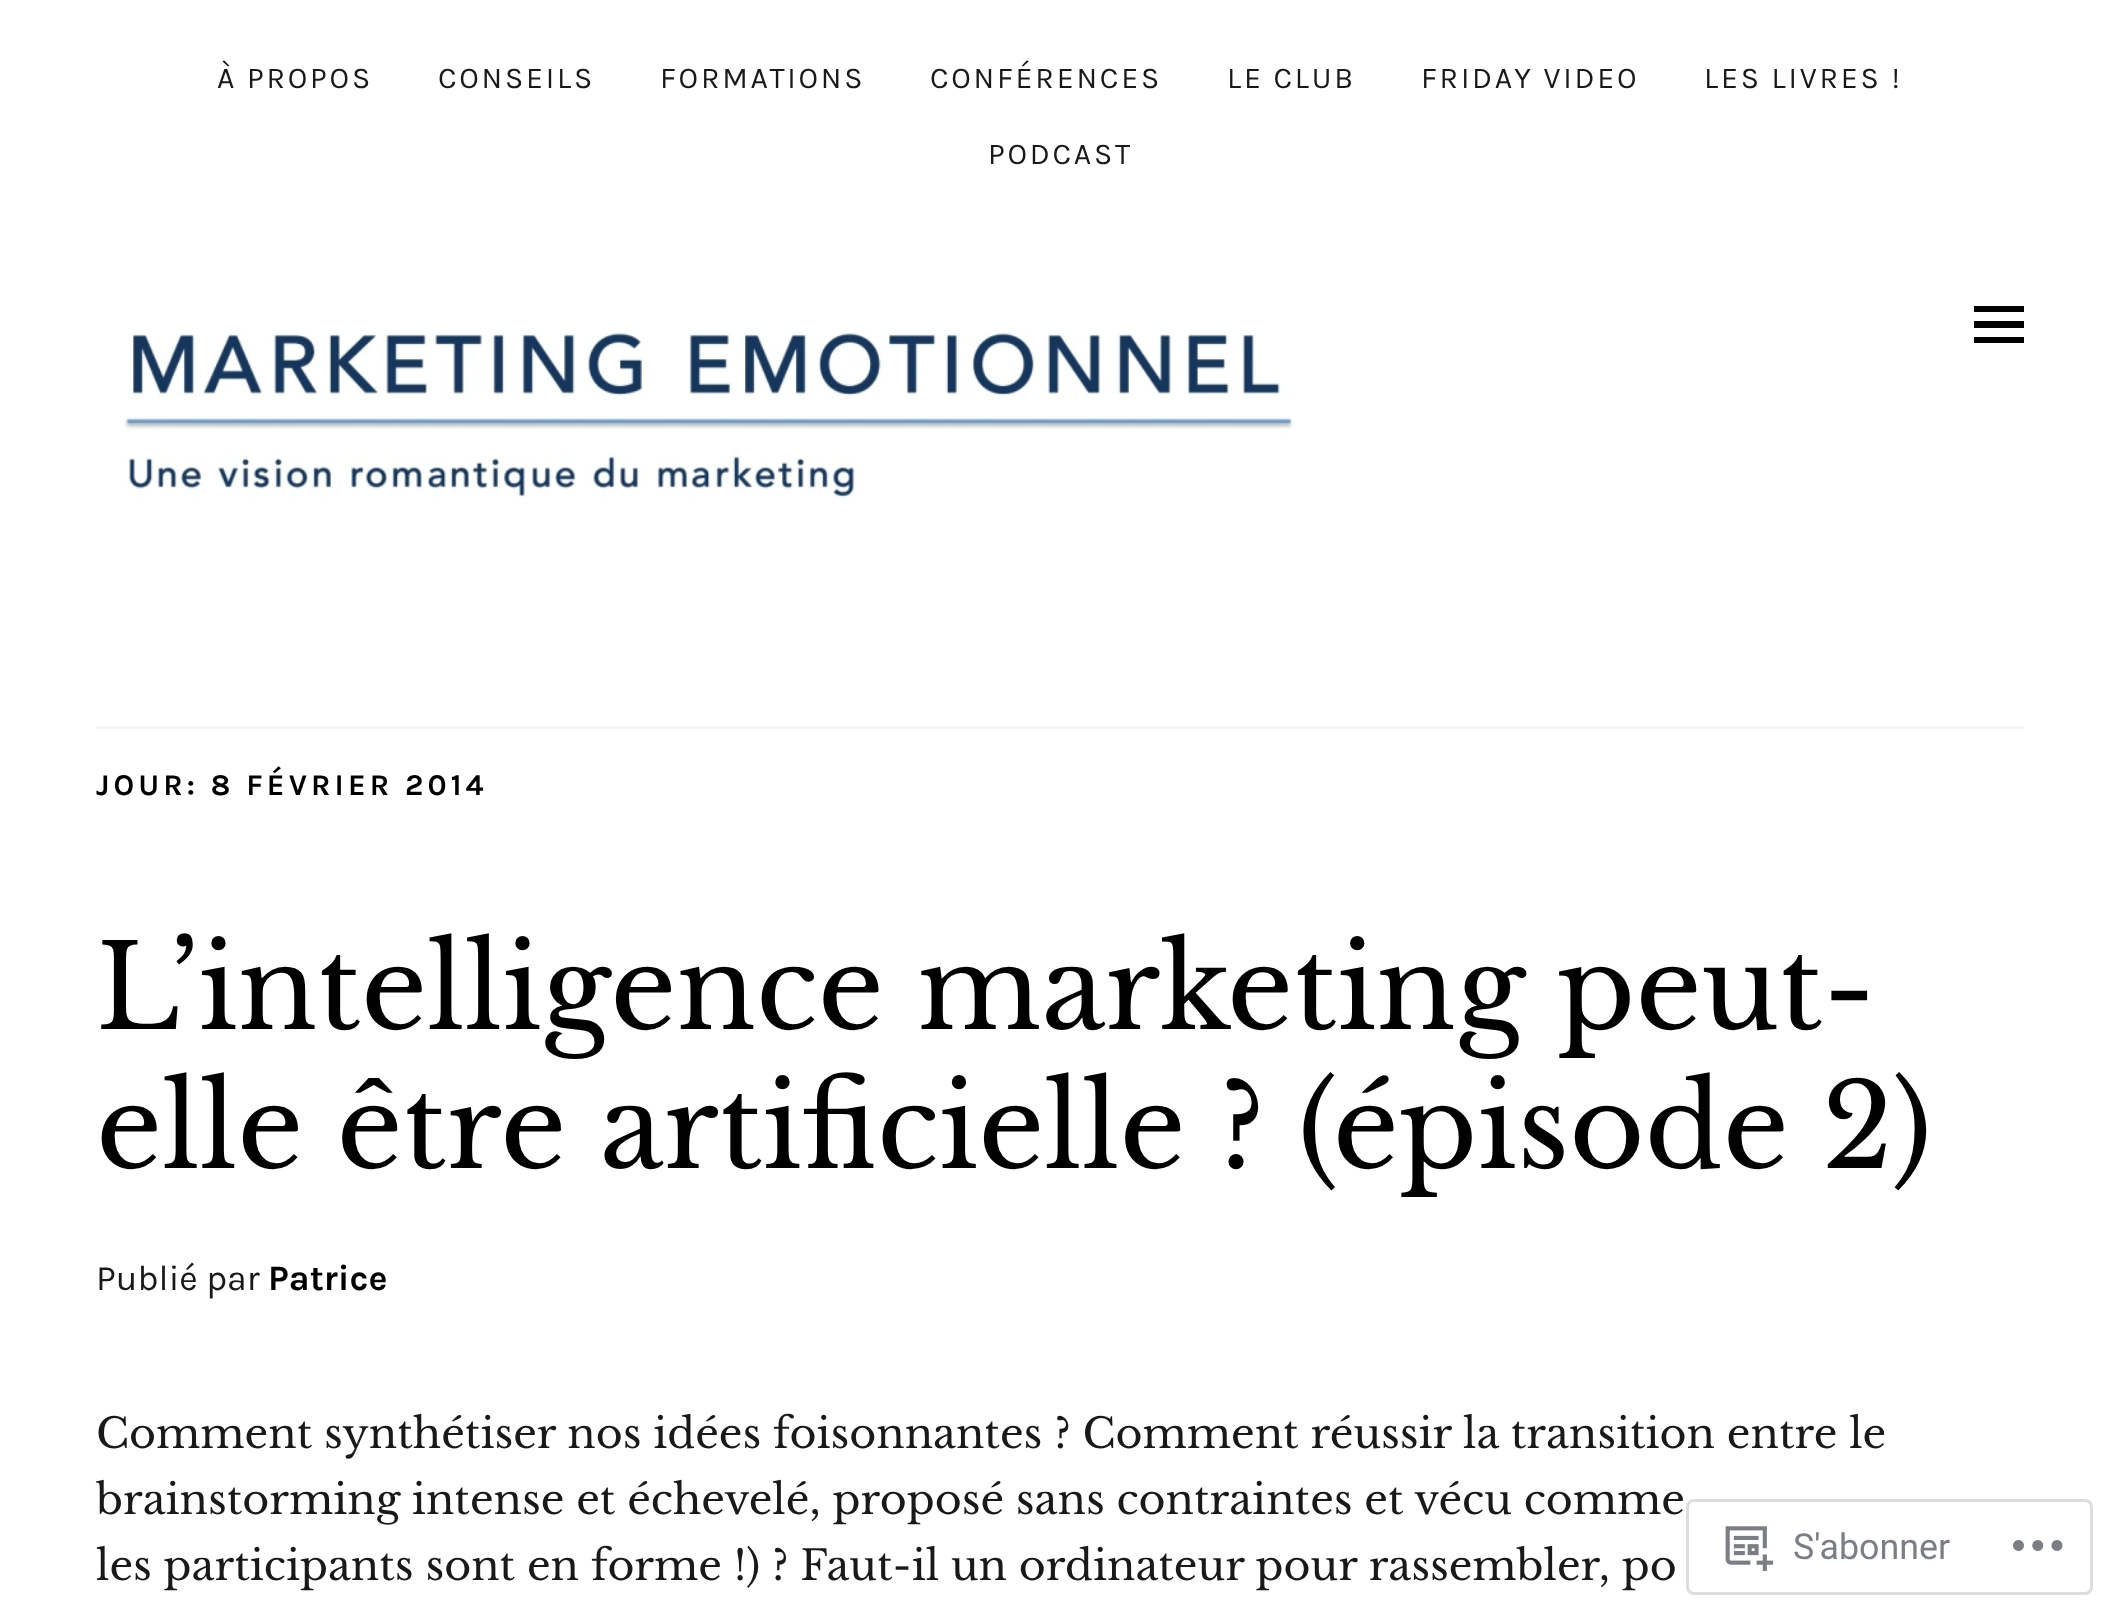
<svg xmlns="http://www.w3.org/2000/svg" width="2118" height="1620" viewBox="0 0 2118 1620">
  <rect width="100%" height="100%" fill="#fff"/>
  <path d="M1974 343V337H2024V343ZM1974 306H2024V312H1974ZM1974 328V321H2024V328Z" fill="#000"/>
  <image x="123" y="331" width="1171" height="168" href="img/1.png"/>
  <path d="M96 726h1928v3H96z" fill="#f5f5f5"/>
  <rect x="1687.5" y="1500.5" width="404" height="93" rx="6.5" fill="none" stroke="#dcdcdefa" stroke-width="3"/>
  <image x="1725" y="1526" width="49" height="45" href="img/2.png"/>
  <image x="2013" y="1540" width="50" height="11" href="img/3.png"/>
  <g font-family="Karla" font-size="30.25" letter-spacing="2.75" fill="#191919">
    <text x="217" y="88">À PROPOS</text>
    <text x="438" y="88">CONSEILS</text>
    <text x="660" y="88">FORMATIONS</text>
    <text x="930" y="88">CONFÉRENCES</text>
    <text x="1227" y="88">LE CLUB</text>
    <text x="1421" y="88">FRIDAY VIDEO</text>
    <text x="1704" y="88">LES LIVRES !</text>
    <text x="988" y="164">PODCAST</text>
  </g>
  <text x="96" y="795" font-family="Karla" font-size="30.25" font-weight="bold" letter-spacing="4.1" fill="#000">JOUR: 8 FÉVRIER 2014</text>
  <g font-family="Libre Baskerville" font-size="115.5" fill="#000">
    <text x="96" y="1029">L’intelligence marketing peut-</text>
    <text x="96" y="1168">elle être artificielle ? (épisode 2)</text>
  </g>
  <text x="96" y="1290" font-family="Karla" font-size="35.75" fill="#191919">Publié par</text>
  <text x="268" y="1290" font-family="Karla" font-size="35.75" font-weight="bold" fill="#000">Patrice</text>
  <g font-family="Libre Baskerville" font-size="41.25" fill="#191919">
    <text x="96" y="1448">Comment synthétiser nos idées foisonnantes ? Comment réussir la transition entre le</text>
    <text x="96" y="1514">brainstorming intense et échevelé, proposé sans contraintes et vécu comme</text>
    <text x="96" y="1580">les participants sont en forme !) ? Faut-il un ordinateur pour rassembler, po</text>
  </g>
  <text x="1793" y="1559" font-family="Roboto" font-size="35.75" fill="#7b7f84">S'abonner</text>
</svg>
